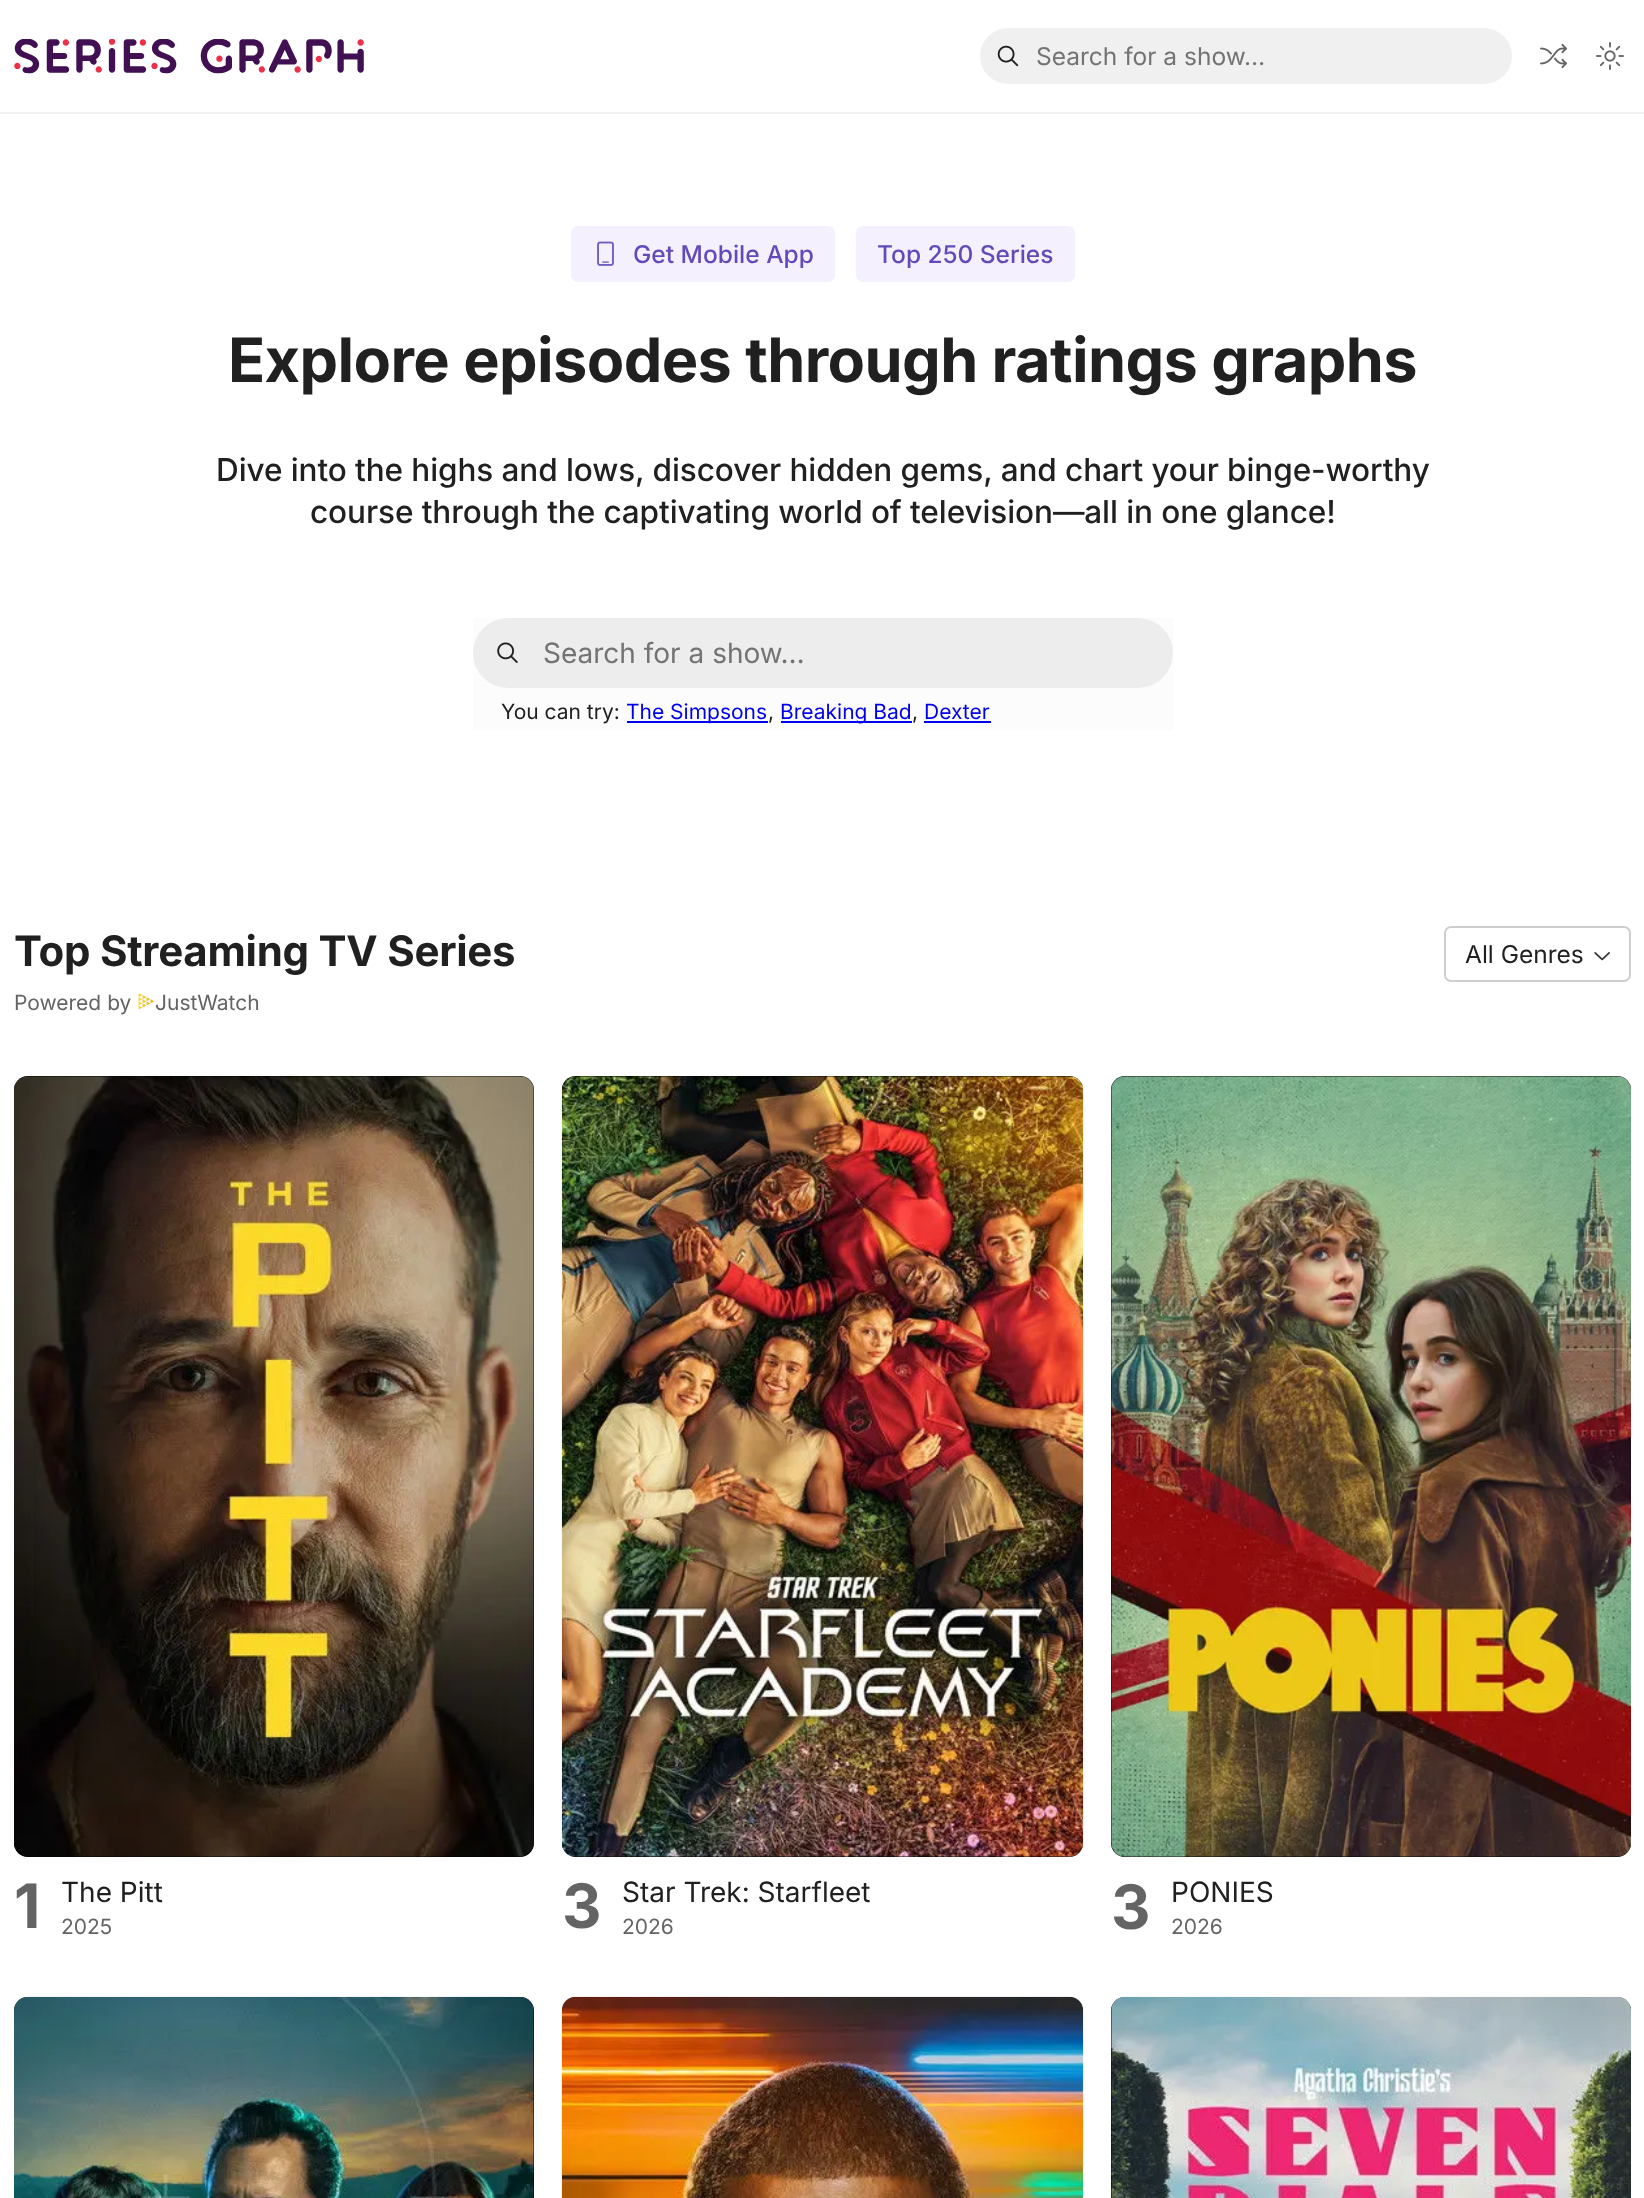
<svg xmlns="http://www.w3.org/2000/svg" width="1644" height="2198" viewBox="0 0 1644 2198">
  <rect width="100%" height="100%" fill="#fff"/>
  <path d="M0 112h1644v2H0z" fill="#f0f0f0"/>
  <image x="14" y="39" width="350" height="35" href="img/1.png"/>
  <rect x="980" y="28" width="532" height="56" rx="28" fill="#f0f0f0"/>
  <image x="997" y="45" width="22" height="22" href="img/2.png"/>
  <image x="1540" y="43" width="27" height="26" href="img/3.png"/>
  <image x="1596" y="42" width="28" height="28" href="img/4.png"/>
  <rect x="571" y="226" width="264" height="56" rx="7" fill="#f4f0fe"/>
  <image x="597" y="241" width="17" height="25" href="img/5.png"/>
  <rect x="856" y="226" width="219" height="56" rx="7" fill="#f4f0fe"/>
  <path d="M473 618h700v112H473z" fill="#fcfcfc"/>
  <rect x="473" y="618" width="700" height="70" rx="35" fill="#ededed"/>
  <image x="497" y="642" width="21" height="21" href="img/6.png"/>
  <path d="M627 721h141v2H627z" fill="#00e"/>
  <path d="M781 721h131v2H781z" fill="#00e"/>
  <path d="M924 721h67v2H924z" fill="#00e"/>
  <image x="138" y="993" width="18" height="17" href="img/7.png"/>
  <rect x="1445" y="927" width="185" height="54" rx="6" fill="none" stroke="#cecece" stroke-width="2"/>
  <image x="1594" y="952" width="16" height="9" href="img/8.png"/>
  <rect x="14" y="1076" width="520" height="781" rx="14" fill="#000"/>
  <image x="14" y="1076" width="520" height="781" href="img/9.png"/>
  <rect x="562" y="1076" width="521" height="781" rx="14" fill="#000"/>
  <image x="561" y="1076" width="523" height="781" href="img/10.png"/>
  <rect x="1111" y="1076" width="520" height="781" rx="14" fill="#000"/>
  <image x="1111" y="1076" width="520" height="781" href="img/11.png"/>
  <rect x="14" y="1997" width="520" height="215" rx="14" fill="#000"/>
  <image x="14" y="1996" width="520" height="202" href="img/12.png"/>
  <image x="561" y="1996" width="523" height="202" href="img/13.png"/>
  <rect x="1111" y="1997" width="520" height="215" rx="14" fill="#000"/>
  <image x="1111" y="1996" width="520" height="202" href="img/14.png"/>
  <text x="1036" y="65" font-family="Inter" font-size="24.5" fill="#737373">Search for a show…</text>
  <g font-family="Inter" font-size="24.5" font-weight="500" fill="#624bb9">
    <text x="633" y="263">Get Mobile App</text>
    <text x="877" y="263">Top 250 Series</text>
  </g>
  <text x="228" y="382" font-family="Inter" font-size="61.25" font-weight="bold" letter-spacing="-0.6" fill="#202020">Explore episodes through ratings graphs</text>
  <g font-family="Inter" font-size="31.5" font-weight="500" letter-spacing="-0.08" fill="#202020">
    <text x="216" y="481">Dive into the highs and lows, discover hidden gems, and chart your binge-worthy</text>
    <text x="310" y="523">course through the captivating world of television—all in one glance!</text>
  </g>
  <text x="543" y="663" font-family="Inter" font-size="28" fill="#737373">Search for a show…</text>
  <text x="501" y="719" font-family="Inter" font-size="21" fill="#202020">You can try:</text>
  <text x="626" y="719" font-family="Inter" font-size="21" fill="#00e">The Simpsons</text>
  <text x="768" y="719" font-family="Inter" font-size="21" fill="#202020">,</text>
  <text x="780" y="719" font-family="Inter" font-size="21" fill="#00e">Breaking Bad</text>
  <text x="912" y="719" font-family="Inter" font-size="21" fill="#202020">,</text>
  <text x="924" y="719" font-family="Inter" font-size="21" fill="#00e">Dexter</text>
  <text x="14" y="966" font-family="Inter" font-size="42" font-weight="bold" letter-spacing="-0.25" fill="#202020">Top Streaming TV Series</text>
  <g font-family="Inter" font-size="21" fill="#646464">
    <text x="14" y="1010">Powered by</text>
    <text x="155" y="1010">JustWatch</text>
  </g>
  <text x="1465" y="963" font-family="Inter" font-size="24.5" fill="#202020">All Genres</text>
  <text x="14" y="1928" font-family="Inter" font-size="61.25" font-weight="bold" letter-spacing="-0.6" fill="#646464">1</text>
  <text x="61" y="1902" font-family="Inter" font-size="28" fill="#202020">The Pitt</text>
  <text x="61" y="1934" font-family="Inter" font-size="21" fill="#646464">2025</text>
  <text x="562" y="1928" font-family="Inter" font-size="61.25" font-weight="bold" letter-spacing="-0.6" fill="#646464">3</text>
  <text x="622" y="1902" font-family="Inter" font-size="28" fill="#202020">Star Trek: Starfleet</text>
  <text x="622" y="1934" font-family="Inter" font-size="21" fill="#646464">2026</text>
  <text x="1111" y="1929" font-family="Inter" font-size="61.25" font-weight="bold" letter-spacing="-0.6" fill="#646464">3</text>
  <text x="1171" y="1902" font-family="Inter" font-size="28" fill="#202020">PONIES</text>
  <text x="1171" y="1934" font-family="Inter" font-size="21" fill="#646464">2026</text>
</svg>
